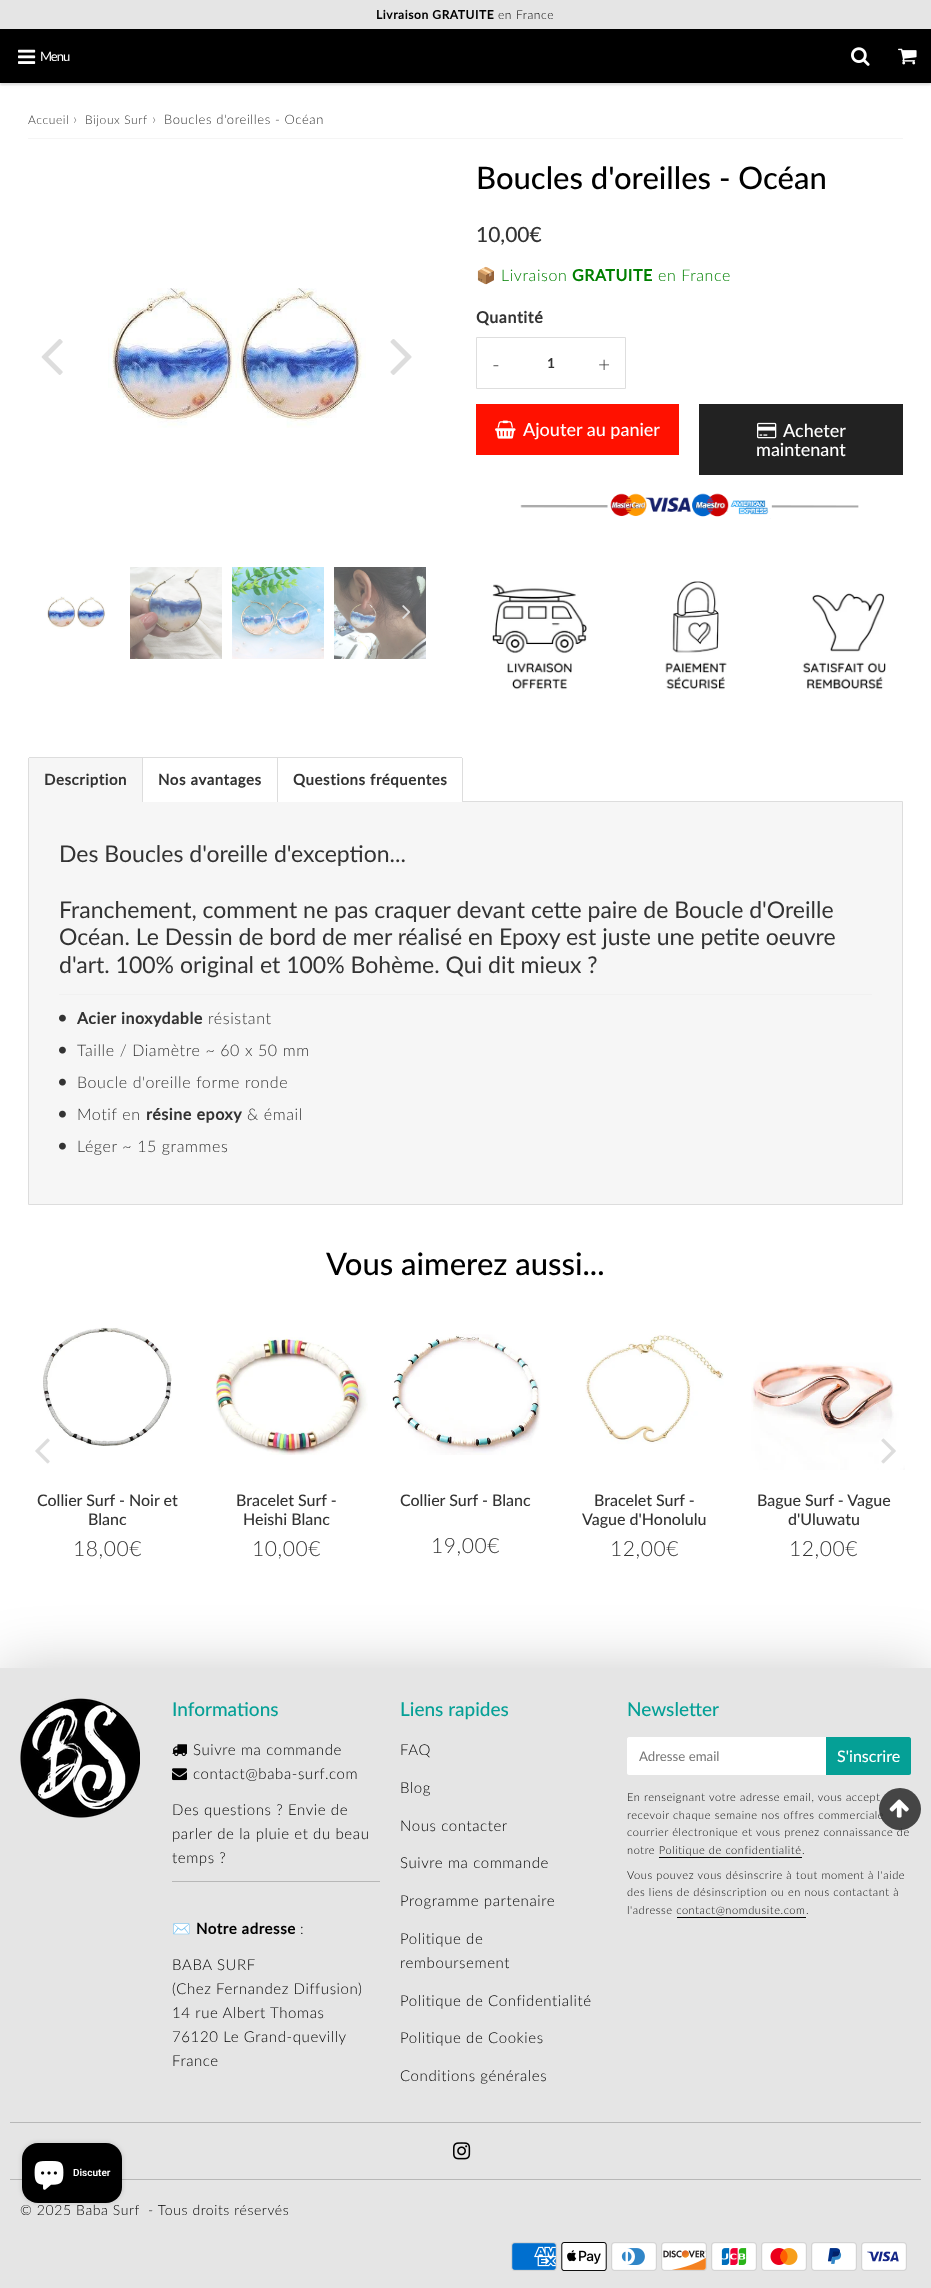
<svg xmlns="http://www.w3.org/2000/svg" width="931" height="2288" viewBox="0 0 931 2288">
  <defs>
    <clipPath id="clip1"><path d="M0 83h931v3H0z"/></clipPath>
  </defs>
  <rect width="100%" height="100%" fill="#fff"/>
  <path d="M0 2h931v83H0z" fill="#0000000d" filter="blur(2px)"/>
  <path d="M0 29h931v54H0z" fill="#000"/>
  <g clip-path="url(#clip1)">
    <path d="M0 31h931v54H0z" fill="#0000001a" filter="blur(1px)"/>
  </g>
  <path d="M0 0h931v29H0z" fill="#e5e5e5"/>
  <image x="18" y="49" width="18" height="15" href="img/1.png"/>
  <image x="851" y="47" width="19" height="19" href="img/2.png"/>
  <image x="898" y="48" width="19" height="17" href="img/3.png"/>
  <path d="M28 138h875v1H28z" fill="#f5f5f5"/>
  <image x="41" y="339" width="22" height="36" href="img/4.png"/>
  <image x="108" y="288" width="258" height="140" href="img/5.png"/>
  <image x="390" y="339" width="22" height="36" href="img/6.png"/>
  <image x="47" y="596" width="59" height="33" href="img/7.png"/>
  <image x="130" y="567" width="92" height="92" href="img/8.png"/>
  <image x="232" y="567" width="92" height="92" href="img/9.png"/>
  <image x="334" y="567" width="92" height="92" href="img/10.png"/>
  <image x="402" y="605" width="9" height="14" href="img/11.png"/>
  <path d="M476.5 337.5h149v51H476.5z" fill="none" stroke="#dedede"/>
  <path d="M476 404h203v51H476z" fill="#f10"/>
  <image x="495" y="420" width="21" height="19" href="img/12.png"/>
  <path d="M699 404h204v71H699z" fill="#222"/>
  <image x="757" y="422" width="20" height="17" href="img/13.png"/>
  <image x="520" y="493" width="339" height="26" href="img/14.png"/>
  <image x="492" y="581" width="394" height="109" href="img/15.png"/>
  <path d="M28.5 801.5h874v403H28.5z" fill="#f6f6f6" stroke="#ddd"/>
  <path d="M30 757H143V802H28V759C28 758 29 757 30 757Z" fill="#f6f6f6"/>
  <path d="M29 757h249v1H29z" fill="#ddd"/>
  <path d="M142 757h1v45H142z" fill="#ddd"/>
  <path d="M28 758h1v44H28z" fill="#ddd"/>
  <path d="M143 801h134v1H143z" fill="#fff"/>
  <path d="M277 757h1v45H277z" fill="#ddd"/>
  <path d="M278 757H461C462 757 463 758 463 759V802H278Z" fill="#fff"/>
  <path d="M278 757h184v1H278z" fill="#ddd"/>
  <path d="M462 758h1v44H462z" fill="#ddd"/>
  <path d="M59 994h813v1H59z" fill="#f1f1f1"/>
  <image x="59" y="1014" width="7" height="8" href="img/16.png"/>
  <image x="59" y="1046" width="7" height="8" href="img/16.png"/>
  <image x="59" y="1078" width="7" height="8" href="img/16.png"/>
  <image x="59" y="1110" width="7" height="8" href="img/16.png"/>
  <image x="59" y="1142" width="7" height="8" href="img/16.png"/>
  <image x="43" y="1327" width="129" height="119" href="img/19.png"/>
  <image x="35" y="1438" width="15" height="26" href="img/17.png"/>
  <image x="751" y="1362" width="154" height="108" href="img/23.png"/>
  <image x="881" y="1438" width="15" height="26" href="img/18.png"/>
  <image x="215" y="1337" width="153" height="118" href="img/20.png"/>
  <image x="392" y="1334" width="149" height="121" href="img/21.png"/>
  <image x="585" y="1334" width="139" height="110" href="img/22.png"/>
  <path d="M0 1668h931v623H0z" fill="#00000033" filter="blur(30px)"/>
  <path d="M0 1668h931v620H0z" fill="#e5e5e5"/>
  <image x="20" y="1698" width="120" height="120" href="img/24.png"/>
  <image x="172" y="1744" width="15" height="13" href="img/25.png"/>
  <image x="172" y="1768" width="15" height="13" href="img/26.png"/>
  <path d="M172 1881h208v1H172z" fill="#b7b7b7"/>
  <path d="M629 1737H826V1775H629C628 1775 627 1774 627 1773V1739C627 1738 628 1737 629 1737Z" fill="#fff"/>
  <path d="M826 1737H909C910 1737 911 1738 911 1739V1773C911 1774 910 1775 909 1775H826Z" fill="#05a096"/>
  <path d="M659 1857h143v1H659z" fill="#000"/>
  <path d="M677 1917h129v1H677z" fill="#000"/>
  <path d="M10 2122h911v1H10z" fill="#b7b7b7"/>
  <image x="453" y="2142" width="18" height="18" href="img/27.png"/>
  <path d="M10 2179h911v1H10z" fill="#b7b7b7"/>
  <image x="511" y="2242" width="46" height="29" href="img/28.png"/>
  <image x="561" y="2242" width="46" height="29" href="img/29.png"/>
  <image x="611" y="2242" width="46" height="29" href="img/30.png"/>
  <image x="661" y="2242" width="46" height="29" href="img/31.png"/>
  <image x="711" y="2242" width="46" height="29" href="img/32.png"/>
  <image x="761" y="2242" width="46" height="29" href="img/33.png"/>
  <image x="811" y="2242" width="46" height="29" href="img/34.png"/>
  <image x="861" y="2242" width="46" height="29" href="img/35.png"/>
  <rect x="22" y="2143" width="100" height="60" rx="16" fill="#00000026" filter="blur(2.5px)"/>
  <rect x="22" y="2143" width="100" height="60" rx="16" fill="#000"/>
  <image x="34" y="2161" width="30" height="29" href="img/37.png"/>
  <text x="376" y="19" font-family="Lato" font-size="12" font-weight="bold" letter-spacing="0.6" fill="#000">Livraison GRATUITE</text>
  <text x="498" y="19" font-family="Lato" font-size="12" font-weight="300" letter-spacing="0.6" fill="#000">en France</text>
  <text x="40" y="61" font-family="Lato" font-size="13" letter-spacing="-1" fill="#fff">Menu</text>
  <text x="28" y="124" font-family="Lato" font-size="12" font-weight="300" letter-spacing="0.6" fill="#333">Accueil</text>
  <text x="73" y="124" font-family="Lato" font-size="15" font-weight="300" letter-spacing="0.6" fill="#767676">›</text>
  <text x="85" y="124" font-family="Lato" font-size="12" font-weight="300" letter-spacing="0.6" fill="#333">Bijoux Surf</text>
  <text x="152" y="124" font-family="Lato" font-size="15" font-weight="300" letter-spacing="0.6" fill="#767676">›</text>
  <text x="164" y="124" font-family="Lato" font-size="13" font-weight="300" letter-spacing="0.6" fill="#333">Boucles d'oreilles - Océan</text>
  <text x="476" y="189" font-family="Lato" font-size="31" font-weight="500" fill="#000">Boucles d'oreilles - Océan</text>
  <text x="476" y="242" font-family="Lato" font-size="21" font-weight="500" fill="#333">10,00€</text>
  <text x="476" y="281" font-family="Noto Color Emoji" font-size="16" letter-spacing="0.6" fill="#008000">📦</text>
  <text x="501" y="281" font-family="Lato" font-size="16" font-weight="300" letter-spacing="0.6" fill="#008000">Livraison</text>
  <text x="572" y="281" font-family="Lato" font-size="16" font-weight="bold" letter-spacing="0.6" fill="#008000">GRATUITE</text>
  <text x="658" y="281" font-family="Lato" font-size="16" font-weight="300" letter-spacing="0.6" fill="#008000">en France</text>
  <text x="476" y="323" font-family="Lato" font-size="16" font-weight="bold" letter-spacing="0.6" fill="#333">Quantité</text>
  <text x="492" y="372" font-family="Lato" font-size="21" font-weight="300" letter-spacing="0.6" fill="#333">-</text>
  <text x="547" y="368" font-family="Lato" font-size="13.25" font-weight="bold" fill="#333">1</text>
  <text x="598" y="372" font-family="Lato" font-size="21" font-weight="300" letter-spacing="0.6" fill="#333">+</text>
  <g font-family="Lato" font-size="18" font-weight="500" fill="#fff">
    <text x="523" y="436">Ajouter au panier</text>
    <text x="783" y="437">Acheter</text>
    <text x="756" y="456">maintenant</text>
  </g>
  <g font-family="Lato" font-size="15" font-weight="bold" letter-spacing="0.6" fill="#333">
    <text x="44" y="785">Description</text>
    <text x="158" y="785">Nos avantages</text>
    <text x="293" y="785">Questions fréquentes</text>
  </g>
  <g font-family="Lato" font-size="23" fill="#333">
    <text x="59" y="862">Des Boucles d'oreille d'exception...</text>
    <text x="59" y="918">Franchement, comment ne pas craquer devant cette paire de Boucle d'Oreille</text>
    <text x="59" y="945">Océan. Le Dessin de bord de mer réalisé en Epoxy est juste une petite oeuvre</text>
    <text x="59" y="973">d'art. 100% original et 100% Bohème. Qui dit mieux ?</text>
  </g>
  <text x="77" y="1024" font-family="Lato" font-size="16" font-weight="bold" letter-spacing="0.6" fill="#333">Acier inoxydable</text>
  <g font-family="Lato" font-size="16" font-weight="300" letter-spacing="0.6" fill="#333">
    <text x="208" y="1024">résistant</text>
    <text x="77" y="1056">Taille / Diamètre ~ 60 x 50 mm</text>
    <text x="77" y="1088">Boucle d'oreille forme ronde</text>
    <text x="77" y="1120">Motif en</text>
  </g>
  <text x="146" y="1120" font-family="Lato" font-size="16" font-weight="bold" letter-spacing="0.6" fill="#333">résine epoxy</text>
  <g font-family="Lato" font-size="16" font-weight="300" letter-spacing="0.6" fill="#333">
    <text x="247" y="1120">&amp; émail</text>
    <text x="77" y="1152">Léger ~ 15 grammes</text>
  </g>
  <text x="326" y="1275" font-family="Lato" font-size="31" font-weight="500" fill="#000">Vous aimerez aussi...</text>
  <g font-family="Lato" font-size="16" font-weight="500" fill="#333">
    <text x="37" y="1506">Collier Surf - Noir et</text>
    <text x="88" y="1525">Blanc</text>
  </g>
  <text x="73" y="1556" font-family="Lato" font-size="21" font-weight="300" letter-spacing="0.6" fill="#333">18,00€</text>
  <g font-family="Lato" font-size="16" font-weight="500" fill="#333">
    <text x="236" y="1506">Bracelet Surf -</text>
    <text x="243" y="1525">Heishi Blanc</text>
  </g>
  <text x="252" y="1556" font-family="Lato" font-size="21" font-weight="300" letter-spacing="0.6" fill="#333">10,00€</text>
  <text x="400" y="1506" font-family="Lato" font-size="16" font-weight="500" fill="#333">Collier Surf - Blanc</text>
  <text x="431" y="1553" font-family="Lato" font-size="21" font-weight="300" letter-spacing="0.6" fill="#333">19,00€</text>
  <g font-family="Lato" font-size="16" font-weight="500" fill="#333">
    <text x="594" y="1506">Bracelet Surf -</text>
    <text x="582" y="1525">Vague d'Honolulu</text>
  </g>
  <text x="610" y="1556" font-family="Lato" font-size="21" font-weight="300" letter-spacing="0.6" fill="#333">12,00€</text>
  <g font-family="Lato" font-size="16" font-weight="500" fill="#333">
    <text x="757" y="1506">Bague Surf - Vague</text>
    <text x="788" y="1525">d'Uluwatu</text>
  </g>
  <text x="789" y="1556" font-family="Lato" font-size="21" font-weight="300" letter-spacing="0.6" fill="#333">12,00€</text>
  <text x="172" y="1716" font-family="Lato" font-size="19" font-weight="500" fill="#05a096">Informations</text>
  <g font-family="Lato" font-size="15" font-weight="300" letter-spacing="0.6" fill="#000">
    <text x="193" y="1755">Suivre ma commande</text>
    <text x="193" y="1779">contact@baba-surf.com</text>
    <text x="172" y="1815">Des questions ? Envie de</text>
    <text x="172" y="1839">parler de la pluie et du beau</text>
    <text x="172" y="1863">temps ?</text>
  </g>
  <text x="172" y="1934" font-family="Noto Color Emoji" font-size="15" letter-spacing="0.6" fill="#000">✉️</text>
  <text x="196" y="1934" font-family="Lato" font-size="15" font-weight="bold" letter-spacing="0.6" fill="#000">Notre adresse</text>
  <g font-family="Lato" font-size="15" font-weight="300" letter-spacing="0.6" fill="#000">
    <text x="300" y="1934">:</text>
    <text x="172" y="1970">BABA SURF</text>
    <text x="172" y="1994">(Chez Fernandez Diffusion)</text>
    <text x="172" y="2018">14 rue Albert Thomas</text>
    <text x="172" y="2042">76120 Le Grand-quevilly</text>
    <text x="172" y="2066">France</text>
  </g>
  <text x="400" y="1716" font-family="Lato" font-size="19" font-weight="500" fill="#05a096">Liens rapides</text>
  <g font-family="Lato" font-size="15" font-weight="300" letter-spacing="0.6" fill="#000">
    <text x="400" y="1755">FAQ</text>
    <text x="400" y="1793">Blog</text>
    <text x="400" y="1831">Nous contacter</text>
    <text x="400" y="1868">Suivre ma commande</text>
    <text x="400" y="1906">Programme partenaire</text>
    <text x="400" y="1944">Politique de</text>
    <text x="400" y="1968">remboursement</text>
    <text x="400" y="2006">Politique de Confidentialité</text>
    <text x="400" y="2043">Politique de Cookies</text>
    <text x="400" y="2081">Conditions générales</text>
  </g>
  <text x="627" y="1716" font-family="Lato" font-size="19" font-weight="500" fill="#05a096">Newsletter</text>
  <text x="639" y="1761" font-family="Lato" font-size="13.25" fill="#767676">Adresse email</text>
  <text x="837" y="1762" font-family="Lato" font-size="16" font-weight="500" fill="#fff">S'inscrire</text>
  <g font-family="Lato" font-size="11" font-weight="300" letter-spacing="0.6" fill="#000">
    <text x="627" y="1801">En renseignant votre adresse email, vous accept</text>
    <text x="627" y="1819">recevoir chaque semaine nos offres commerciale</text>
    <text x="627" y="1836">courrier électronique et vous prenez connaissance de</text>
    <text x="627" y="1854">notre Politique de confidentialité</text>
    <text x="802" y="1854">.</text>
    <text x="627" y="1879">Vous pouvez vous désinscrire à tout moment à l'aide</text>
    <text x="627" y="1896">des liens de désinscription ou en nous contactant à</text>
    <text x="627" y="1914">l'adresse contact@nomdusite.com</text>
    <text x="806" y="1914">.</text>
  </g>
  <g font-family="Lato" font-size="14" font-weight="300" letter-spacing="0.6" fill="#000">
    <text x="20" y="2215">© 2025 Baba Surf</text>
    <text x="148" y="2215">- Tous droits réservés</text>
  </g>
  <circle cx="900" cy="1809" r="21" fill="#333333e6"/>
  <image x="889" y="1799" width="20" height="19" href="img/36.png"/>
  <text x="73" y="2176" font-family="Roboto" font-size="10" font-weight="600" fill="#fff">Discuter</text>
</svg>
